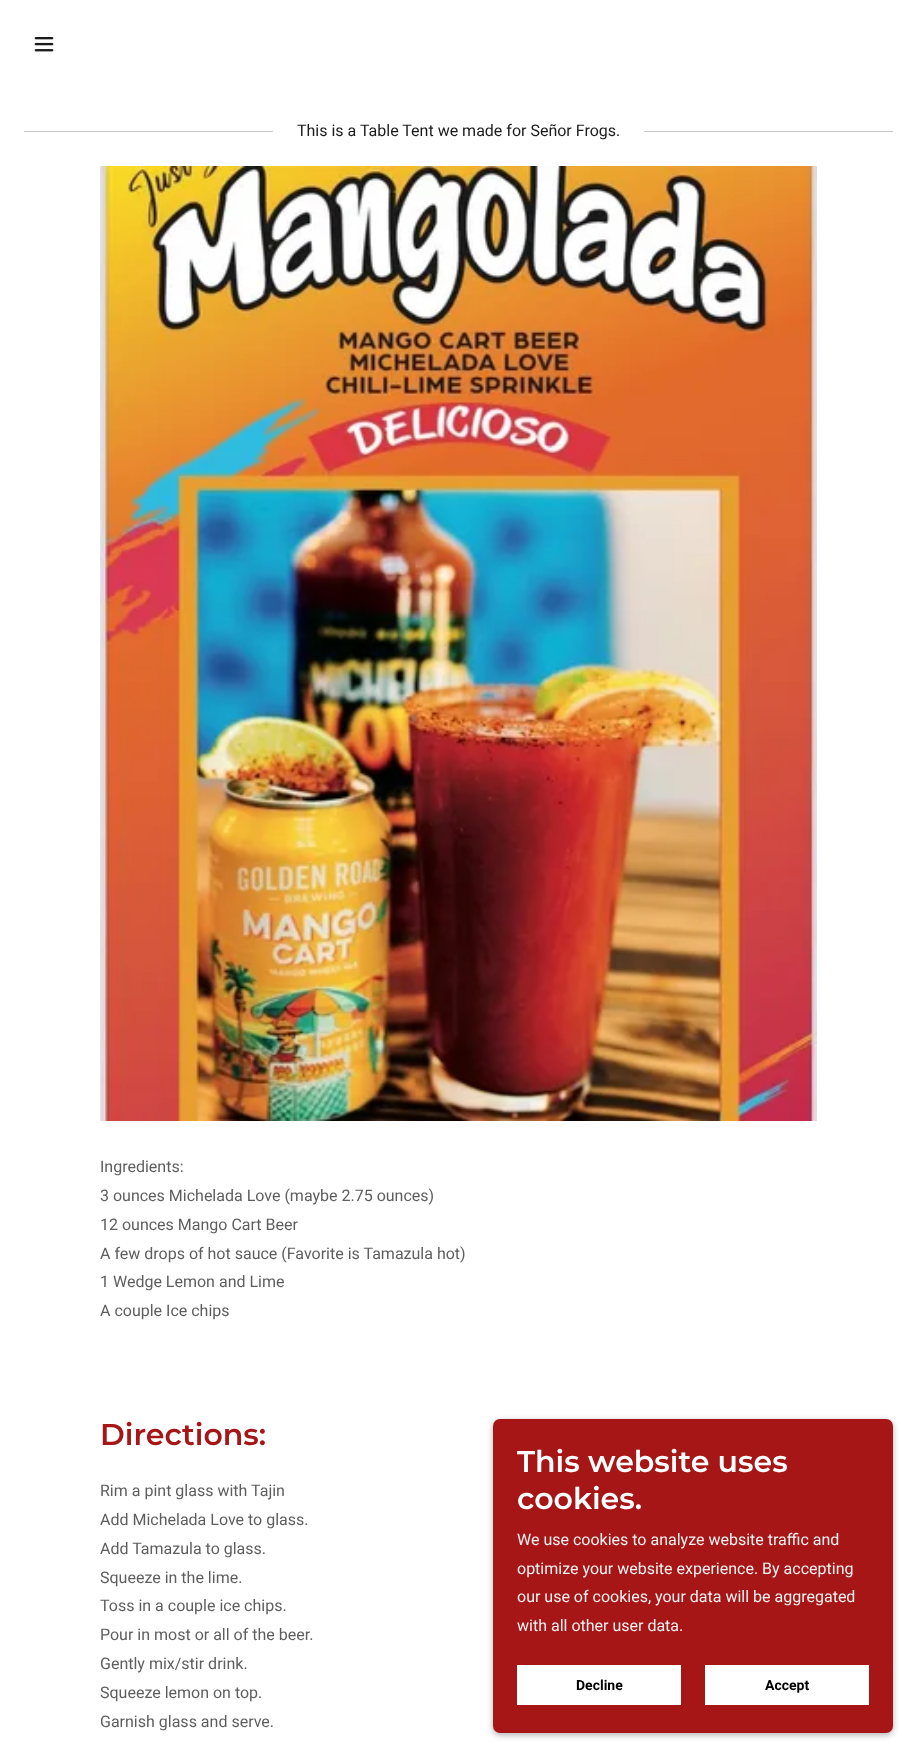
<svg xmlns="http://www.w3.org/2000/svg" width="917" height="1757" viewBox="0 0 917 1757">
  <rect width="100%" height="100%" fill="#fff"/>
  <image x="34" y="37" width="20" height="15" href="img/1.png"/>
  <path d="M24 131h249v1H24z" fill="#c6c6c6"/>
  <path d="M644 131h249v1H644z" fill="#c6c6c6"/>
  <image x="100" y="166" width="717" height="955" href="img/2.png"/>
  <rect x="493" y="1421" width="400" height="314" rx="7" fill="#0000004d" filter="blur(3px)"/>
  <rect x="493" y="1419" width="400" height="314" rx="7" fill="#a61616"/>
  <path d="M517 1665h164v40H517z" fill="#fff"/>
  <path d="M705 1665h164v40H705z" fill="#fff"/>
  <text x="297" y="136" font-family="Roboto" font-size="16" fill="#1b1b1b">This is a Table Tent we made for Señor Frogs.</text>
  <g font-family="Roboto" font-size="16" fill="#5e5e5e">
    <text x="100" y="1172">Ingredients:</text>
    <text x="100" y="1201">3 ounces Michelada Love (maybe 2.75 ounces)</text>
    <text x="100" y="1230">12 ounces Mango Cart Beer</text>
    <text x="100" y="1259">A few drops of hot sauce (Favorite is Tamazula hot)</text>
    <text x="100" y="1287">1 Wedge Lemon and Lime</text>
    <text x="100" y="1316">A couple Ice chips</text>
  </g>
  <text x="100" y="1445" font-family="Montserrat" font-size="30" font-weight="600" fill="#a61616">Directions:</text>
  <g font-family="Roboto" font-size="16" fill="#5e5e5e">
    <text x="100" y="1496">Rim a pint glass with Tajin</text>
    <text x="100" y="1525">Add Michelada Love to glass.</text>
    <text x="100" y="1554">Add Tamazula to glass.</text>
    <text x="100" y="1583">Squeeze in the lime.</text>
    <text x="100" y="1611">Toss in a couple ice chips.</text>
    <text x="100" y="1640">Pour in most or all of the beer.</text>
    <text x="100" y="1669">Gently mix/stir drink.</text>
    <text x="100" y="1698">Squeeze lemon on top.</text>
    <text x="100" y="1727">Garnish glass and serve.</text>
  </g>
  <g font-family="Montserrat" font-size="30" font-weight="600" fill="#fff">
    <text x="517" y="1472">This website uses</text>
    <text x="517" y="1509">cookies.</text>
  </g>
  <g font-family="Roboto" font-size="16" fill="#f3f2f2">
    <text x="517" y="1545">We use cookies to analyze website traffic and</text>
    <text x="517" y="1574">optimize your website experience. By accepting</text>
    <text x="517" y="1602">our use of cookies, your data will be aggregated</text>
    <text x="517" y="1631">with all other user data.</text>
  </g>
  <g font-family="Roboto" font-size="14" font-weight="bold" fill="#000">
    <text x="576" y="1690">Decline</text>
    <text x="765" y="1690">Accept</text>
  </g>
</svg>
